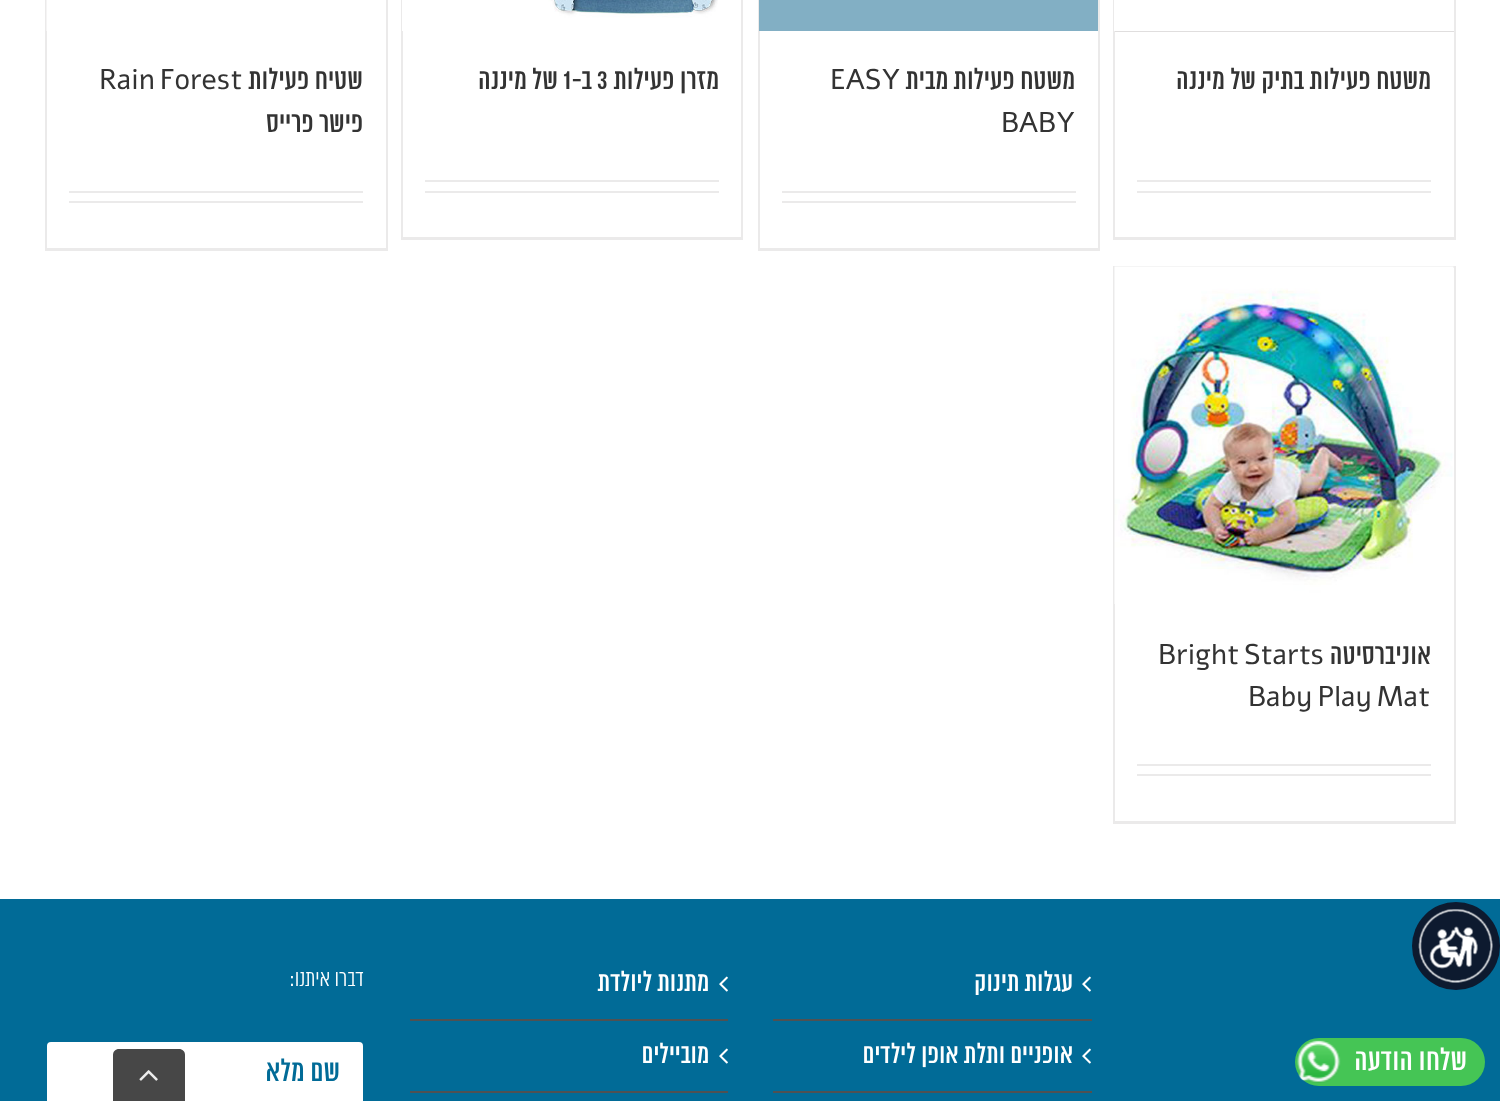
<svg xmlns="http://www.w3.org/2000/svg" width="1500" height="1101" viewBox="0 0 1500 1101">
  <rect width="100%" height="100%" fill="#fff"/>
  <path d="M0 899h1500v202H0z" fill="#016b97"/>
  <circle cx="1456" cy="946" r="44" fill="#0d1a2f"/>
  <image x="1418" y="909" width="75" height="74" href="img/1.png"/>
  <path d="M1454 0h2v240H1454z" fill="#ebeaea"/>
  <path d="M1113 237h342v3H1113z" fill="#ebeaea"/>
  <path d="M1113 0h2v240H1113z" fill="#ebeaea"/>
  <path d="M1115 31h339v1H1115z" fill="#e0dede"/>
  <path d="M1114 0h1v31H1114z" fill="#fff"/>
  <path d="M1137 180h294v2H1137z" fill="#ebeaea"/>
  <path d="M1137 191h294v2H1137z" fill="#ebeaea"/>
  <path d="M1098 0h2v251H1098z" fill="#ebeaea"/>
  <path d="M758 248h342v3H758z" fill="#ebeaea"/>
  <path d="M758 0h2v251H758z" fill="#ebeaea"/>
  <path d="M759 0h339v31H759z" fill="#82afc4"/>
  <path d="M782 191h294v2H782z" fill="#ebeaea"/>
  <path d="M782 201h294v2H782z" fill="#ebeaea"/>
  <path d="M741 0h2v240H741z" fill="#ebeaea"/>
  <path d="M401 237h342v3H401z" fill="#ebeaea"/>
  <path d="M401 0h2v240H401z" fill="#ebeaea"/>
  <image x="402" y="0" width="316" height="31" href="img/2.png"/>
  <path d="M425 180h294v2H425z" fill="#ebeaea"/>
  <path d="M425 191h294v2H425z" fill="#ebeaea"/>
  <path d="M386 0h2v251H386z" fill="#ebeaea"/>
  <path d="M45 248h342v3H45z" fill="#ebeaea"/>
  <path d="M45 0h2v251H45z" fill="#ebeaea"/>
  <path d="M46 0h1v31H46z" fill="#f5f4f4"/>
  <path d="M69 191h294v2H69z" fill="#ebeaea"/>
  <path d="M69 201h294v2H69z" fill="#ebeaea"/>
  <path d="M1113 266h342v2H1113z" fill="#ebeaea"/>
  <path d="M1454 266h2v558H1454z" fill="#ebeaea"/>
  <path d="M1113 821h342v3H1113z" fill="#ebeaea"/>
  <path d="M1113 266h2v558H1113z" fill="#ebeaea"/>
  <image x="1114" y="266" width="340" height="338" href="img/3.png"/>
  <path d="M1137 764h294v2H1137z" fill="#ebeaea"/>
  <path d="M1137 774h294v2H1137z" fill="#ebeaea"/>
  <path d="M773 1019h319v2H773z" fill="#505152"/>
  <image x="1082" y="976" width="9" height="16" href="img/4.png"/>
  <path d="M773 1091h319v2H773z" fill="#505152"/>
  <image x="1082" y="1048" width="9" height="16" href="img/4.png"/>
  <path d="M410 1019h318v2H410z" fill="#505152"/>
  <image x="719" y="976" width="9" height="16" href="img/4.png"/>
  <path d="M410 1091h318v2H410z" fill="#505152"/>
  <image x="719" y="1048" width="9" height="16" href="img/4.png"/>
  <rect x="46" y="1041" width="318" height="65" rx="5" fill="#fff" stroke="#016b97" stroke-width="2"/>
  <rect x="1295" y="1038" width="190" height="48" rx="24" fill="#45c555"/>
  <image x="1296" y="1040" width="45" height="43" href="img/5.png"/>
  <path d="M119 1049H179C182.5 1049 185 1051.5 185 1055V1101H113V1055C113 1051.5 115.5 1049 119 1049Z" fill="#474747"/>
  <image x="139" y="1070" width="19" height="11" href="img/6.png"/>
  <g font-family="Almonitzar" font-size="28.5" direction="rtl" fill="#333">
    <text x="1431" y="89">משטח פעילות בתיק של מיננה</text>
    <text x="1075" y="89">משטח פעילות מבית</text>
  </g>
  <g font-family="Alef" font-size="28.5" fill="#333">
    <text x="830" y="89">EASY</text>
    <text x="1001" y="132">BABY</text>
  </g>
  <text x="719" y="89" font-family="Almonitzar" font-size="28.5" direction="rtl" fill="#333">מזרן פעילות</text>
  <text x="597" y="89" font-family="Almonitzar" font-size="28.5" fill="#333">3</text>
  <text x="592" y="89" font-family="Almonitzar" font-size="28.5" direction="rtl" fill="#333">ב-</text>
  <text x="563" y="89" font-family="Almonitzar" font-size="28.5" fill="#333">1</text>
  <g font-family="Almonitzar" font-size="28.5" direction="rtl" fill="#333">
    <text x="558" y="89">של מיננה</text>
    <text x="363" y="89">שטיח פעילות</text>
  </g>
  <text x="99" y="89" word-spacing="-3" font-family="Alef" font-size="28.5" fill="#333">Rain Forest</text>
  <g font-family="Almonitzar" font-size="28.5" direction="rtl" fill="#333">
    <text x="363" y="132">פישר פרייס</text>
    <text x="1431" y="664">אוניברסיטה</text>
  </g>
  <g font-family="Alef" font-size="28.5" fill="#333">
    <text x="1158" y="664" word-spacing="-3">Bright Starts</text>
    <text x="1248" y="706" word-spacing="-3">Baby Play Mat</text>
  </g>
  <g font-family="Almonitzar" font-size="27" direction="rtl" fill="#fff">
    <text x="1073" y="991">עגלות תינוק</text>
    <text x="1073" y="1063">אופניים ותלת אופן לילדים</text>
    <text x="709" y="991">מתנות ליולדת</text>
    <text x="709" y="1063">מוביילים</text>
  </g>
  <text x="364" y="986" font-family="Almonitzar" font-size="22.5" font-weight="300" direction="rtl" fill="#fff">דברו איתנו:</text>
  <text x="340" y="1081" font-family="Almonitzar" font-size="30" direction="rtl" fill="#016b97">שם מלא</text>
  <text x="1467" y="1070" font-family="Almonitzar" font-size="30" direction="rtl" fill="#fff">שלחו הודעה</text>
</svg>
